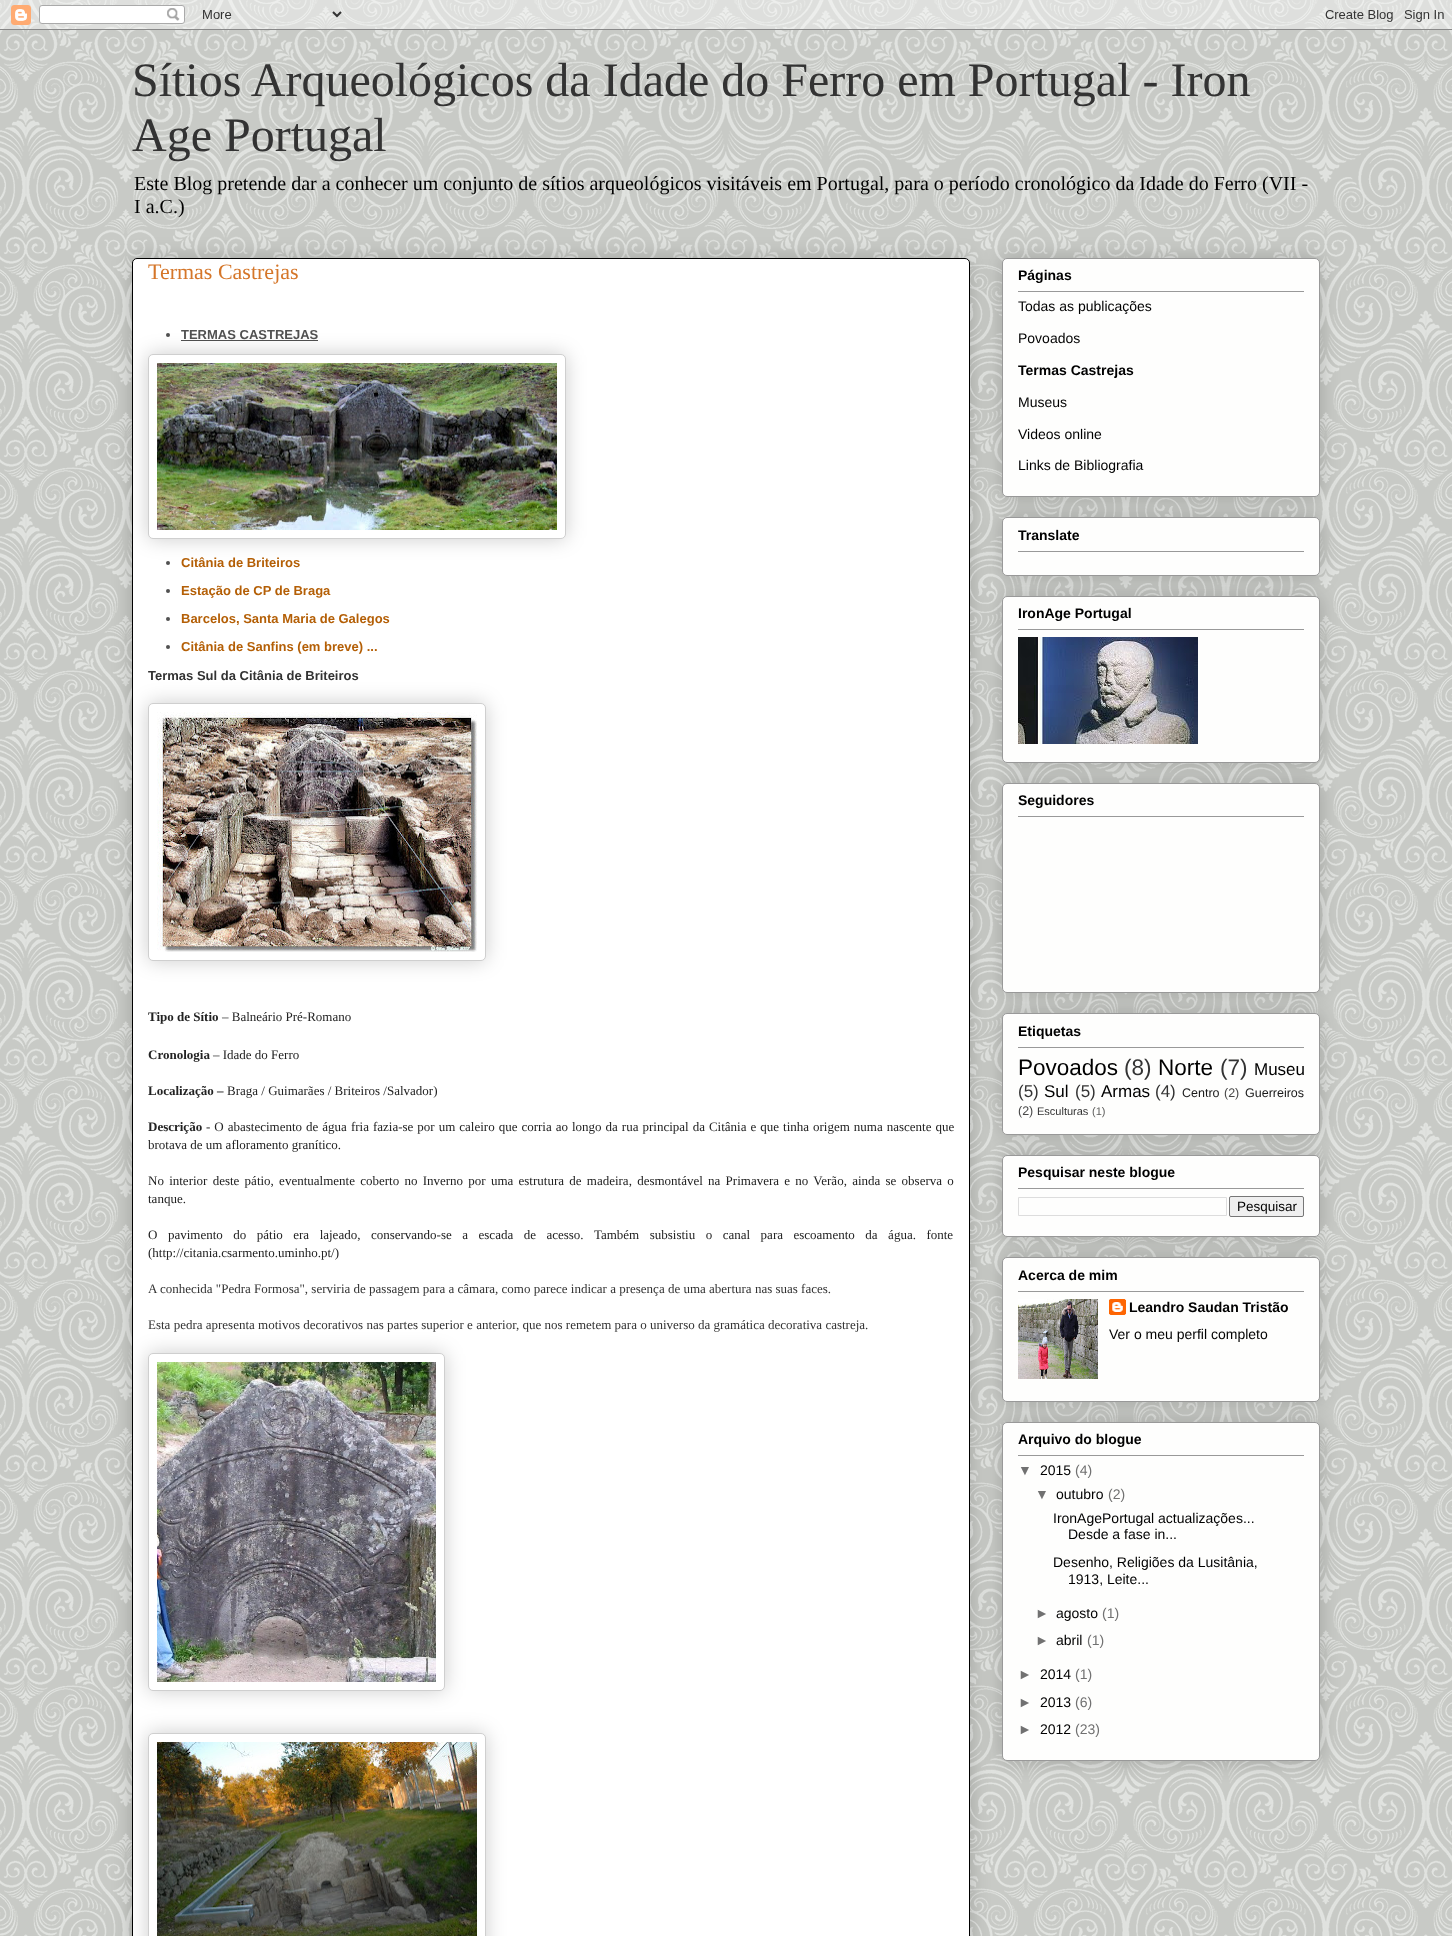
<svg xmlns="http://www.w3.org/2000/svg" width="1452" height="1936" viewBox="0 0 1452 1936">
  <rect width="100%" height="100%" fill="#fafdf8"/>
  <image x="0" y="0" width="1452" height="1936" href="img/1.png"/>
  <image x="0" y="0" width="1452" height="30" href="img/2.png"/>
  <rect x="132" y="258" width="838" height="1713" rx="5" fill="#00000033" filter="blur(10px)"/>
  <rect x="132.5" y="258.5" width="837" height="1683" rx="4.5" fill="#fff" stroke="#000"/>
  <circle cx="168" cy="335" r="2" fill="#515151"/>
  <path d="M181 340h137v1H181z" fill="#515151"/>
  <rect x="148" y="354" width="418" height="185" rx="5" fill="#00000033" filter="blur(10px)"/>
  <rect x="148.5" y="354.5" width="417" height="184" rx="4.5" fill="#fff" stroke="#cfcfcf"/>
  <image x="157" y="363" width="400" height="167" href="img/3.png"/>
  <circle cx="168" cy="563" r="2" fill="#515151"/>
  <circle cx="168" cy="591" r="2" fill="#515151"/>
  <circle cx="168" cy="619" r="2" fill="#515151"/>
  <circle cx="168" cy="647" r="2" fill="#515151"/>
  <rect x="148" y="703" width="338" height="258" rx="5" fill="#00000033" filter="blur(10px)"/>
  <rect x="148.5" y="703.5" width="337" height="257" rx="4.5" fill="#fff" stroke="#cfcfcf"/>
  <image x="157" y="712" width="320" height="240" href="img/4.png"/>
  <rect x="148" y="1353" width="297" height="338" rx="5" fill="#00000033" filter="blur(10px)"/>
  <rect x="148.5" y="1353.5" width="296" height="337" rx="4.5" fill="#fff" stroke="#cfcfcf"/>
  <image x="157" y="1362" width="279" height="320" href="img/5.png"/>
  <rect x="148" y="1733" width="338" height="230" rx="5" fill="#00000033" filter="blur(10px)"/>
  <rect x="148.5" y="1733.5" width="337" height="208" rx="4.5" fill="#fff" stroke="#cfcfcf"/>
  <image x="157" y="1742" width="320" height="194" href="img/6.png"/>
  <rect x="1002" y="258" width="318" height="239" rx="5" fill="#00000033" filter="blur(10px)"/>
  <rect x="1002.5" y="258.5" width="317" height="238" rx="4.5" fill="#fefefd" stroke="#999"/>
  <path d="M1018 291h286v1H1018z" fill="#999"/>
  <rect x="1002" y="517" width="318" height="59" rx="5" fill="#00000033" filter="blur(10px)"/>
  <rect x="1002.5" y="517.5" width="317" height="58" rx="4.5" fill="#fefefd" stroke="#999"/>
  <path d="M1018 551h286v1H1018z" fill="#999"/>
  <rect x="1002" y="596" width="318" height="167" rx="5" fill="#00000033" filter="blur(10px)"/>
  <rect x="1002.5" y="596.5" width="317" height="166" rx="4.5" fill="#fefefd" stroke="#999"/>
  <path d="M1018 629h286v1H1018z" fill="#999"/>
  <image x="1018" y="637" width="180" height="107" href="img/7.png"/>
  <rect x="1002" y="783" width="318" height="210" rx="5" fill="#00000033" filter="blur(10px)"/>
  <rect x="1002.5" y="783.5" width="317" height="209" rx="4.5" fill="#fefefd" stroke="#999"/>
  <path d="M1018 816h286v1H1018z" fill="#999"/>
  <rect x="1002" y="1013" width="318" height="122" rx="5" fill="#00000033" filter="blur(10px)"/>
  <rect x="1002.5" y="1013.5" width="317" height="121" rx="4.5" fill="#fefefd" stroke="#999"/>
  <path d="M1018 1047h286v1H1018z" fill="#999"/>
  <rect x="1002" y="1155" width="318" height="82" rx="5" fill="#00000033" filter="blur(10px)"/>
  <rect x="1002.5" y="1155.5" width="317" height="81" rx="4.5" fill="#fefefd" stroke="#999"/>
  <path d="M1018 1188h286v1H1018z" fill="#999"/>
  <path d="M1018.5 1197.5h208v18H1018.5z" fill="none" stroke="#ddd"/>
  <rect x="1229.5" y="1196.5" width="74" height="20" rx="1.5" fill="#efefef" stroke="#767676"/>
  <rect x="1002" y="1257" width="318" height="145" rx="5" fill="#00000033" filter="blur(10px)"/>
  <rect x="1002.5" y="1257.5" width="317" height="144" rx="4.5" fill="#fefefd" stroke="#999"/>
  <path d="M1018 1291h286v1H1018z" fill="#999"/>
  <image x="1018" y="1299" width="80" height="80" href="img/8.png"/>
  <image x="1109" y="1299" width="17" height="16" href="img/9.png"/>
  <rect x="1002" y="1422" width="318" height="339" rx="5" fill="#00000033" filter="blur(10px)"/>
  <rect x="1002.5" y="1422.5" width="317" height="338" rx="4.5" fill="#fefefd" stroke="#999"/>
  <path d="M1018 1455h286v1H1018z" fill="#999"/>
  <g font-family="Liberation Serif" font-size="48" fill="#333">
    <text x="132" y="96">Sítios Arqueológicos da Idade do Ferro em Portugal - Iron</text>
    <text x="132" y="151">Age Portugal</text>
  </g>
  <g font-family="Liberation Serif" font-size="20" fill="#000">
    <text x="134" y="190">Este Blog pretende dar a conhecer um conjunto de sítios arqueológicos visitáveis em Portugal, para o período cronológico da Idade do Ferro (VII -</text>
    <text x="134" y="213">I a.C.)</text>
  </g>
  <text x="148" y="279" font-family="Liberation Serif" font-size="22" fill="#d57629">Termas Castrejas</text>
  <text x="181" y="339" font-family="Liberation Sans" font-size="13" font-weight="bold" fill="#515151">TERMAS CASTREJAS</text>
  <g font-family="Liberation Sans" font-size="13" font-weight="bold" fill="#b45f06">
    <text x="181" y="567">Citânia de Briteiros</text>
    <text x="181" y="595">Estação de CP de Braga</text>
    <text x="181" y="623">Barcelos, Santa Maria de Galegos</text>
    <text x="181" y="651">Citânia de Sanfins (em breve) ...</text>
  </g>
  <text x="148" y="680" font-family="Liberation Sans" font-size="13" font-weight="bold" fill="#333">Termas Sul da Citânia de Briteiros</text>
  <text x="148" y="1021" font-family="Liberation Serif" font-size="13" font-weight="bold" fill="#222">Tipo de Sítio</text>
  <text x="222" y="1021" font-family="Liberation Serif" font-size="13" fill="#222">– Balneário Pré-Romano</text>
  <text x="148" y="1059" font-family="Liberation Serif" font-size="13" font-weight="bold" fill="#222">Cronologia</text>
  <text x="213" y="1059" font-family="Liberation Serif" font-size="13" fill="#222">– Idade do Ferro</text>
  <text x="148" y="1095" font-family="Liberation Serif" font-size="13" font-weight="bold" fill="#222">Localização –</text>
  <text x="227" y="1095" font-family="Liberation Serif" font-size="13" fill="#222">Braga / Guimarães / Briteiros /Salvador)</text>
  <text x="148" y="1131" font-family="Liberation Serif" font-size="13" font-weight="bold" fill="#222">Descrição</text>
  <g font-family="Liberation Serif" font-size="13" fill="#222">
    <text x="206" y="1131" word-spacing="0.75">- O abastecimento de água fria fazia-se por um caleiro que corria ao longo da rua principal da Citânia e que tinha origem numa nascente que</text>
    <text x="148" y="1149">brotava de um afloramento granítico.</text>
    <text x="148" y="1185" word-spacing="2">No interior deste pátio, eventualmente coberto no Inverno por uma estrutura de madeira, desmontável na Primavera e no Verão, ainda se observa o</text>
    <text x="148" y="1203">tanque.</text>
    <text x="148" y="1239" word-spacing="7.25">O pavimento do pátio era lajeado, conservando-se a escada de acesso. Também subsistiu o canal para escoamento da água. fonte</text>
    <text x="148" y="1257">(http://citania.csarmento.uminho.pt/)</text>
  </g>
  <g font-family="Liberation Serif" font-size="13" fill="#333">
    <text x="148" y="1293">A conhecida "Pedra Formosa", serviria de passagem para a câmara, como parece indicar a presença de uma abertura nas suas faces.</text>
    <text x="148" y="1329">Esta pedra apresenta motivos decorativos nas partes superior e anterior, que nos remetem para o universo da gramática decorativa castreja.</text>
  </g>
  <text x="1018" y="280" font-family="Liberation Sans" font-size="14" font-weight="bold" fill="#000">Páginas</text>
  <g font-family="Liberation Sans" font-size="14" fill="#000">
    <text x="1018" y="311">Todas as publicações</text>
    <text x="1018" y="343">Povoados</text>
  </g>
  <text x="1018" y="375" font-family="Liberation Sans" font-size="14" font-weight="bold" fill="#000">Termas Castrejas</text>
  <g font-family="Liberation Sans" font-size="14" fill="#000">
    <text x="1018" y="407">Museus</text>
    <text x="1018" y="439">Videos online</text>
    <text x="1018" y="470">Links de Bibliografia</text>
  </g>
  <g font-family="Liberation Sans" font-size="14" font-weight="bold" fill="#000">
    <text x="1018" y="540">Translate</text>
    <text x="1018" y="618">IronAge Portugal</text>
    <text x="1018" y="805">Seguidores</text>
    <text x="1018" y="1036">Etiquetas</text>
  </g>
  <text x="1018" y="1075" font-family="Liberation Sans" font-size="22.5" fill="#000">Povoados</text>
  <text x="1124" y="1075" font-family="Liberation Sans" font-size="22.5" fill="#333">(8)</text>
  <text x="1158" y="1075" font-family="Liberation Sans" font-size="22.5" fill="#000">Norte</text>
  <text x="1220" y="1075" font-family="Liberation Sans" font-size="22.5" fill="#333">(7)</text>
  <text x="1254" y="1075" font-family="Liberation Sans" font-size="17" fill="#000">Museu</text>
  <text x="1018" y="1097" font-family="Liberation Sans" font-size="17" fill="#333">(5)</text>
  <text x="1044" y="1097" font-family="Liberation Sans" font-size="17" fill="#000">Sul</text>
  <text x="1075" y="1097" font-family="Liberation Sans" font-size="17" fill="#333">(5)</text>
  <text x="1101" y="1097" font-family="Liberation Sans" font-size="17" fill="#000">Armas</text>
  <text x="1155" y="1097" font-family="Liberation Sans" font-size="17" fill="#333">(4)</text>
  <text x="1182" y="1097" font-family="Liberation Sans" font-size="12.5" fill="#191919">Centro</text>
  <text x="1224" y="1097" font-family="Liberation Sans" font-size="12.5" fill="#474747">(2)</text>
  <text x="1245" y="1097" font-family="Liberation Sans" font-size="12.5" fill="#191919">Guerreiros</text>
  <text x="1018" y="1115" font-family="Liberation Sans" font-size="12.5" fill="#474747">(2)</text>
  <text x="1037" y="1115" font-family="Liberation Sans" font-size="11" fill="#333">Esculturas</text>
  <text x="1092" y="1115" font-family="Liberation Sans" font-size="11" fill="#5c5c5b">(1)</text>
  <text x="1018" y="1177" font-family="Liberation Sans" font-size="14" font-weight="bold" fill="#000">Pesquisar neste blogue</text>
  <text x="1237" y="1211" font-family="Liberation Sans" font-size="13.5" fill="#000">Pesquisar</text>
  <g font-family="Liberation Sans" font-size="14" font-weight="bold" fill="#000">
    <text x="1018" y="1280">Acerca de mim</text>
    <text x="1129" y="1312">Leandro Saudan Tristão</text>
  </g>
  <text x="1109" y="1339" font-family="Liberation Sans" font-size="14" fill="#000">Ver o meu perfil completo</text>
  <text x="1018" y="1444" font-family="Liberation Sans" font-size="14" font-weight="bold" fill="#000">Arquivo do blogue</text>
  <text x="1018" y="1475" font-family="Liberation Sans" font-size="14" fill="#717171">▼</text>
  <text x="1040" y="1475" font-family="Liberation Sans" font-size="14" fill="#000">2015</text>
  <g font-family="Liberation Sans" font-size="14" fill="#717171">
    <text x="1075" y="1475">(4)</text>
    <text x="1035" y="1499">▼</text>
  </g>
  <text x="1056" y="1499" font-family="Liberation Sans" font-size="14" fill="#000">outubro</text>
  <text x="1108" y="1499" font-family="Liberation Sans" font-size="14" fill="#717171">(2)</text>
  <g font-family="Liberation Sans" font-size="14" fill="#000">
    <text x="1053" y="1523">IronAgePortugal actualizações...</text>
    <text x="1068" y="1539">Desde a fase in...</text>
    <text x="1053" y="1567">Desenho, Religiões da Lusitânia,</text>
    <text x="1068" y="1584">1913, Leite...</text>
  </g>
  <text x="1035" y="1618" font-family="Liberation Sans" font-size="14" fill="#717171">►</text>
  <text x="1056" y="1618" font-family="Liberation Sans" font-size="14" fill="#000">agosto</text>
  <g font-family="Liberation Sans" font-size="14" fill="#717171">
    <text x="1102" y="1618">(1)</text>
    <text x="1035" y="1645">►</text>
  </g>
  <text x="1056" y="1645" font-family="Liberation Sans" font-size="14" fill="#000">abril</text>
  <g font-family="Liberation Sans" font-size="14" fill="#717171">
    <text x="1087" y="1645">(1)</text>
    <text x="1018" y="1679">►</text>
  </g>
  <text x="1040" y="1679" font-family="Liberation Sans" font-size="14" fill="#000">2014</text>
  <g font-family="Liberation Sans" font-size="14" fill="#717171">
    <text x="1075" y="1679">(1)</text>
    <text x="1018" y="1707">►</text>
  </g>
  <text x="1040" y="1707" font-family="Liberation Sans" font-size="14" fill="#000">2013</text>
  <g font-family="Liberation Sans" font-size="14" fill="#717171">
    <text x="1075" y="1707">(6)</text>
    <text x="1018" y="1734">►</text>
  </g>
  <text x="1040" y="1734" font-family="Liberation Sans" font-size="14" fill="#000">2012</text>
  <text x="1075" y="1734" font-family="Liberation Sans" font-size="14" fill="#717171">(23)</text>
</svg>
